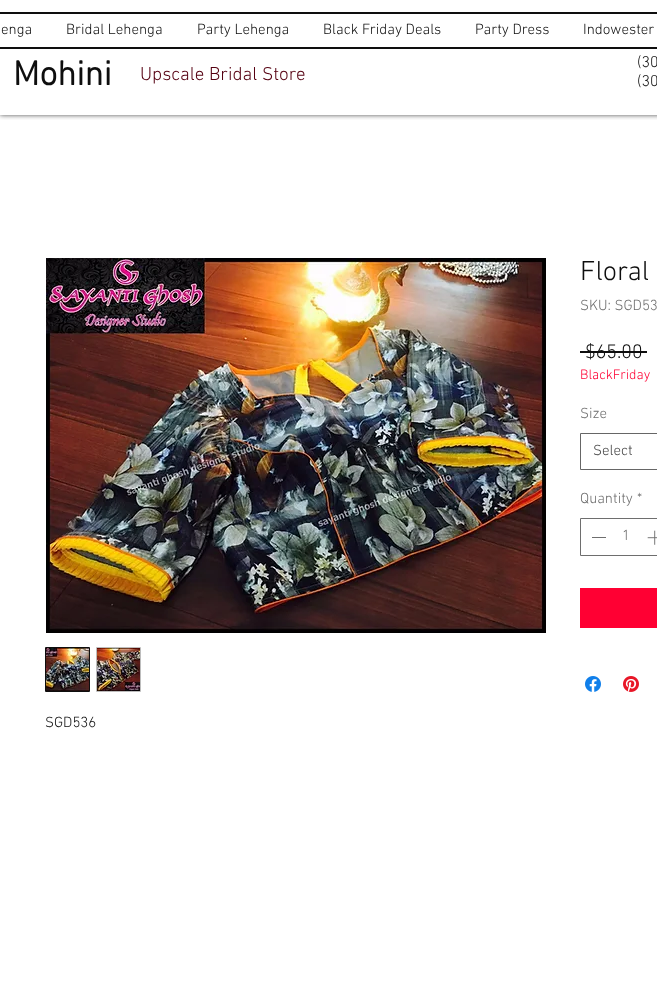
<svg xmlns="http://www.w3.org/2000/svg" width="657" height="993" viewBox="0 0 657 993">
  <defs>
    <clipPath id="clip1"><path d="M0 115h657v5H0z"/></clipPath>
  </defs>
  <rect width="100%" height="100%" fill="#fff"/>
  <g clip-path="url(#clip1)">
    <path d="M0 0h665v115H0z" fill="#000000b3" filter="blur(2.5px)"/>
  </g>
  <path d="M0 12h657v2H0z" fill="#0e0e0e"/>
  <path d="M0 47h657v2H0z" fill="#0e0e0e"/>
  <path d="M580 351h67v2H580z" fill="#0e0e0e"/>
  <path d="M580.5 433.5h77v36H580.5z" fill="none" stroke="#666"/>
  <path d="M580.5 518.5h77v37H580.5z" fill="none" stroke="#6e6e6e"/>
  <path d="M592 537h14v1H592z" fill="#6e6e6e"/>
  <image x="647" y="530" width="10" height="15" href="img/1.png"/>
  <path d="M580 588h77v40H580z" fill="#f03"/>
  <image x="585" y="676" width="16" height="16" href="img/2.png"/>
  <image x="623" y="676" width="16" height="16" href="img/3.png"/>
  <image x="46" y="258" width="500" height="375" href="img/4.png"/>
  <path d="M45.5 647.5h44v44H45.5z" fill="none" stroke="#0e0e0e"/>
  <image x="46" y="648" width="43" height="43" href="img/5.png"/>
  <path d="M96.5 647.5h44v44H96.5z" fill="none" stroke="#bdbdbd"/>
  <image x="97" y="648" width="43" height="43" href="img/6.png"/>
  <g font-family="'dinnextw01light'" font-size="15" font-weight="300" fill="#0e0e0e">
    <text x="1" y="34">enga</text>
    <text x="66" y="34">Bridal Lehenga</text>
    <text x="197" y="34">Party Lehenga</text>
    <text x="323" y="34">Black Friday Deals</text>
    <text x="475" y="34">Party Dress</text>
    <text x="583" y="34">Indowester</text>
  </g>
  <text x="13" y="85" font-family="'dinnextw01light'" font-size="35" font-weight="bold" fill="#0e0e0e">Mohini</text>
  <text x="140" y="80" font-family="'dinnextw01light'" font-size="19" font-weight="300" fill="#501">Upscale Bridal Store</text>
  <g font-family="'dinnextw01light'" font-size="16" font-weight="300" fill="#0e0e0e">
    <text x="637" y="67">(30</text>
    <text x="637" y="86">(30</text>
  </g>
  <text x="580" y="280" font-family="'dinnextw01light'" font-size="28" font-weight="300" fill="#0e0e0e">Floral</text>
  <text x="580" y="310" font-family="'dinnextw01light'" font-size="15" font-weight="300" fill="#6e6e6e">SKU: SGD53</text>
  <text x="585" y="358" font-family="'dinnextw01light'" font-size="20" font-weight="300" fill="#0e0e0e">$65.00</text>
  <text x="580" y="379" font-family="'dinnextw01light'" font-size="14" font-weight="300" fill="#f03">BlackFriday</text>
  <text x="580" y="418" font-family="'dinnextw01light'" font-size="15" font-weight="300" fill="#6e6e6e">Size</text>
  <text x="593" y="455" font-family="'dinnextw01light'" font-size="15" font-weight="300" fill="#444">Select</text>
  <g font-family="'dinnextw01light'" font-size="15" font-weight="300" fill="#6e6e6e">
    <text x="580" y="503">Quantity</text>
    <text x="637" y="503">*</text>
    <text x="622" y="540">1</text>
  </g>
  <text x="45" y="727" font-family="'dinnextw01light'" font-size="15" font-weight="300" fill="#0e0e0e">SGD536</text>
</svg>
